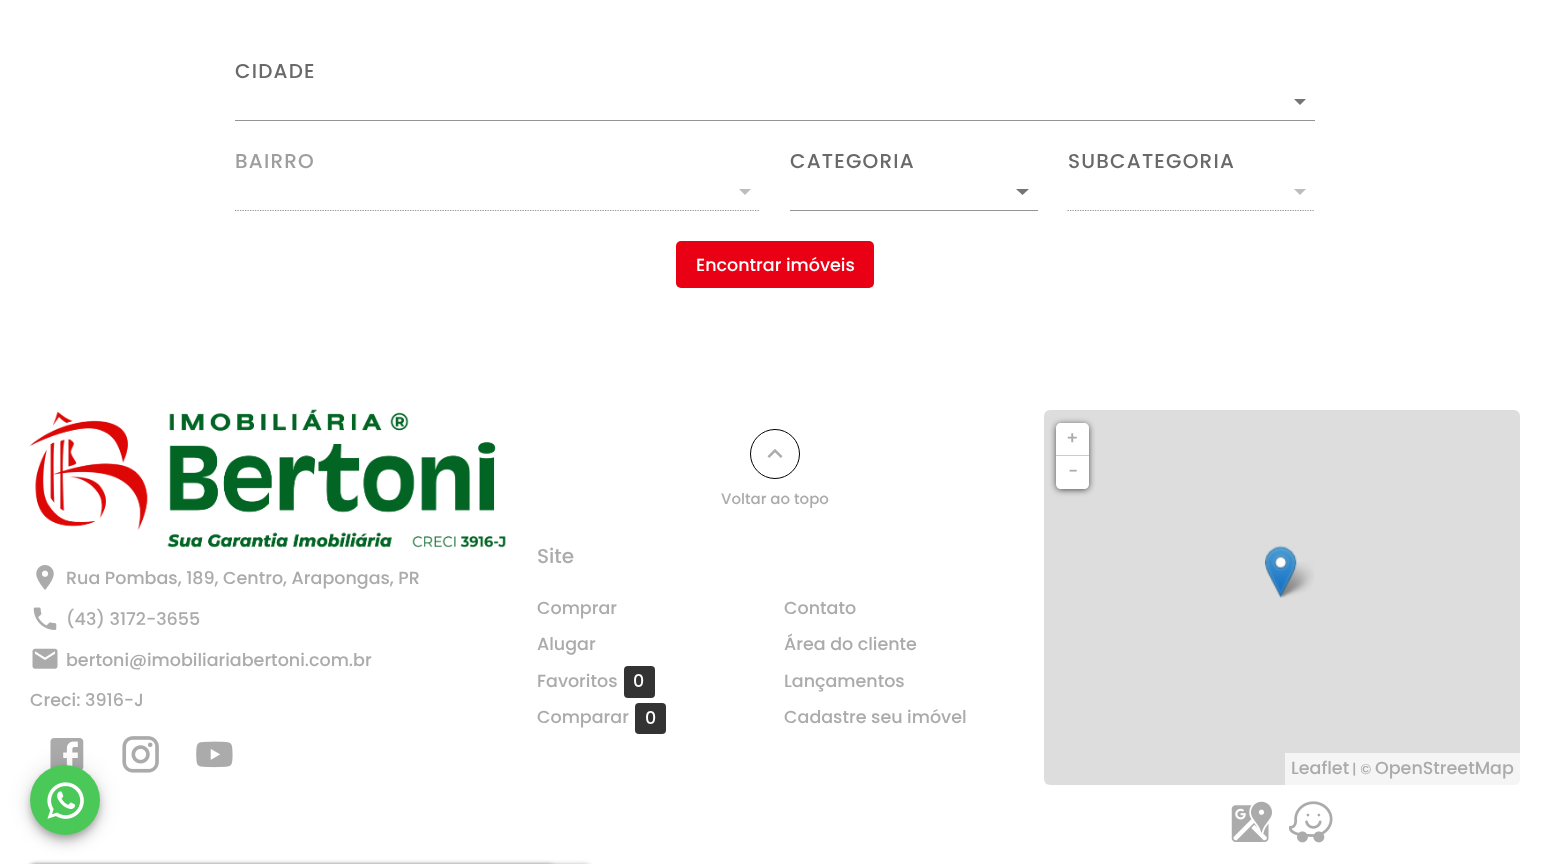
<svg xmlns="http://www.w3.org/2000/svg" width="1549" height="864" viewBox="0 0 1549 864">
  <rect width="100%" height="100%" fill="#fff"/>
  <path d="M1294 99L1300 105L1306 99Z" fill="#757575"/>
  <path d="M235 120h1080v1H235z" fill="#949494"/>
  <path d="M739 189L745 195L751 189Z" fill="#bdbdbd"/>
  <path d="M235 210.5H760" fill="none" stroke="#949494" stroke-width="1.2" stroke-dasharray="1.25 1.25"/>
  <path d="M1016 189L1022.5 195L1029 189Z" fill="#757575"/>
  <path d="M790 210h248v1H790z" fill="#949494"/>
  <path d="M1294 189L1300 195L1306 189Z" fill="#bdbdbd"/>
  <path d="M1067.5 210.5H1315" fill="none" stroke="#949494" stroke-width="1.2" stroke-dasharray="1.25 1.25"/>
  <rect x="676" y="241" width="198" height="47" rx="5" fill="#e90014"/>
  <image x="30" y="409" width="476" height="139" href="img/1.png"/>
  <image x="36" y="565" width="18" height="25" href="img/2.png"/>
  <image x="33" y="607" width="24" height="23" href="img/3.png"/>
  <image x="32" y="648" width="26" height="21" href="img/4.png"/>
  <image x="50" y="738" width="34" height="32" href="img/5.png"/>
  <image x="122" y="736" width="37" height="37" href="img/6.png"/>
  <image x="196" y="741" width="37" height="27" href="img/7.png"/>
  <circle cx="775" cy="454" r="24.5" fill="none" stroke="#000"/>
  <image x="767" y="449" width="16" height="9" href="img/8.png"/>
  <rect x="624" y="666" width="31" height="32" rx="4" fill="#333"/>
  <rect x="635" y="703" width="31" height="31" rx="4" fill="#333"/>
  <rect x="1044" y="410" width="476" height="375" rx="6" fill="#ddd"/>
  <rect x="1056" y="424" width="33" height="66" rx="5" fill="#000000a6" filter="blur(3px)"/>
  <path d="M1061 423H1084C1087 423 1089 425 1089 428V456H1056V428C1056 425 1058 423 1061 423Z" fill="#fff"/>
  <path d="M1056 455h33v1H1056z" fill="#ccc"/>
  <path d="M1056 456H1089V484C1089 487 1087 489 1084 489H1061C1058 489 1056 487 1056 484Z" fill="#fff"/>
  <path d="M1285 753H1520V779C1520 782.5 1517.5 785 1514 785H1285Z" fill="#ffffffb3"/>
  <image x="1276" y="562" width="38" height="36" href="img/10.png"/>
  <image x="1265" y="545" width="32" height="53" href="img/9.png"/>
  <image x="1231" y="801" width="41" height="41" href="img/11.png"/>
  <image x="1289" y="801" width="44" height="42" href="img/12.png"/>
  <rect x="30" y="766" width="70" height="70" rx="35" fill="#0000001f" filter="blur(11px)"/>
  <rect x="30" y="773" width="70" height="70" rx="35" fill="#00000024" filter="blur(6px)"/>
  <rect x="31" y="770" width="68" height="68" rx="34" fill="#00000033" filter="blur(3px)"/>
  <circle cx="65" cy="800" r="35" fill="#4ac959"/>
  <image x="47" y="782" width="37" height="37" href="img/13.png"/>
  <rect x="29" y="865" width="526" height="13" rx="6" fill="#00000066" filter="blur(2.5px)"/>
  <rect x="29" y="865" width="562" height="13" rx="6" fill="#00000066" filter="blur(2.5px)"/>
  <text x="235" y="78" font-family="Poppins" font-size="20" font-weight="500" letter-spacing="1.2" fill="#696969">CIDADE</text>
  <text x="235" y="168" font-family="Poppins" font-size="20" font-weight="500" letter-spacing="1.2" fill="#9e9e9e">BAIRRO</text>
  <g font-family="Poppins" font-size="20" font-weight="500" letter-spacing="1.2" fill="#696969">
    <text x="790" y="168">CATEGORIA</text>
    <text x="1068" y="168">SUBCATEGORIA</text>
  </g>
  <text x="696" y="271" font-family="Poppins" font-size="17.5" font-weight="500" fill="#fff">Encontrar imóveis</text>
  <g font-family="Poppins" font-size="17.5" font-weight="500" fill="#ababab">
    <text x="66" y="584">Rua Pombas, 189, Centro, Arapongas, PR</text>
    <text x="66" y="625">(43) 3172-3655</text>
    <text x="66" y="666">bertoni@imobiliariabertoni.com.br</text>
    <text x="30" y="706">Creci: 3916-J</text>
  </g>
  <text x="721" y="504" font-family="Poppins" font-size="15" font-weight="500" fill="#ababab">Voltar ao topo</text>
  <text x="537" y="563" font-family="Poppins" font-size="20" font-weight="500" fill="#ababab">Site</text>
  <g font-family="Poppins" font-size="17.5" font-weight="500" fill="#ababab">
    <text x="537" y="614">Comprar</text>
    <text x="784" y="614">Contato</text>
    <text x="537" y="650">Alugar</text>
    <text x="784" y="650">Área do cliente</text>
    <text x="537" y="687">Favoritos</text>
  </g>
  <text x="633" y="687" font-family="Poppins" font-size="17.5" font-weight="500" fill="#fff">0</text>
  <g font-family="Poppins" font-size="17.5" font-weight="500" fill="#ababab">
    <text x="784" y="687">Lançamentos</text>
    <text x="537" y="723">Comparar</text>
  </g>
  <text x="645" y="724" font-family="Poppins" font-size="17.5" font-weight="500" fill="#fff">0</text>
  <g font-family="Poppins" font-size="17.5" font-weight="500" fill="#ababab">
    <text x="784" y="723">Cadastre seu imóvel</text>
    <text x="1066" y="444">+</text>
    <text x="1068" y="477">−</text>
    <text x="1291" y="774">Leaflet</text>
  </g>
  <text x="1352" y="774" font-family="Poppins" font-size="14" font-weight="500" fill="#ababab">| ©</text>
  <text x="1375" y="774" font-family="Poppins" font-size="17.5" font-weight="500" fill="#ababab">OpenStreetMap</text>
</svg>
